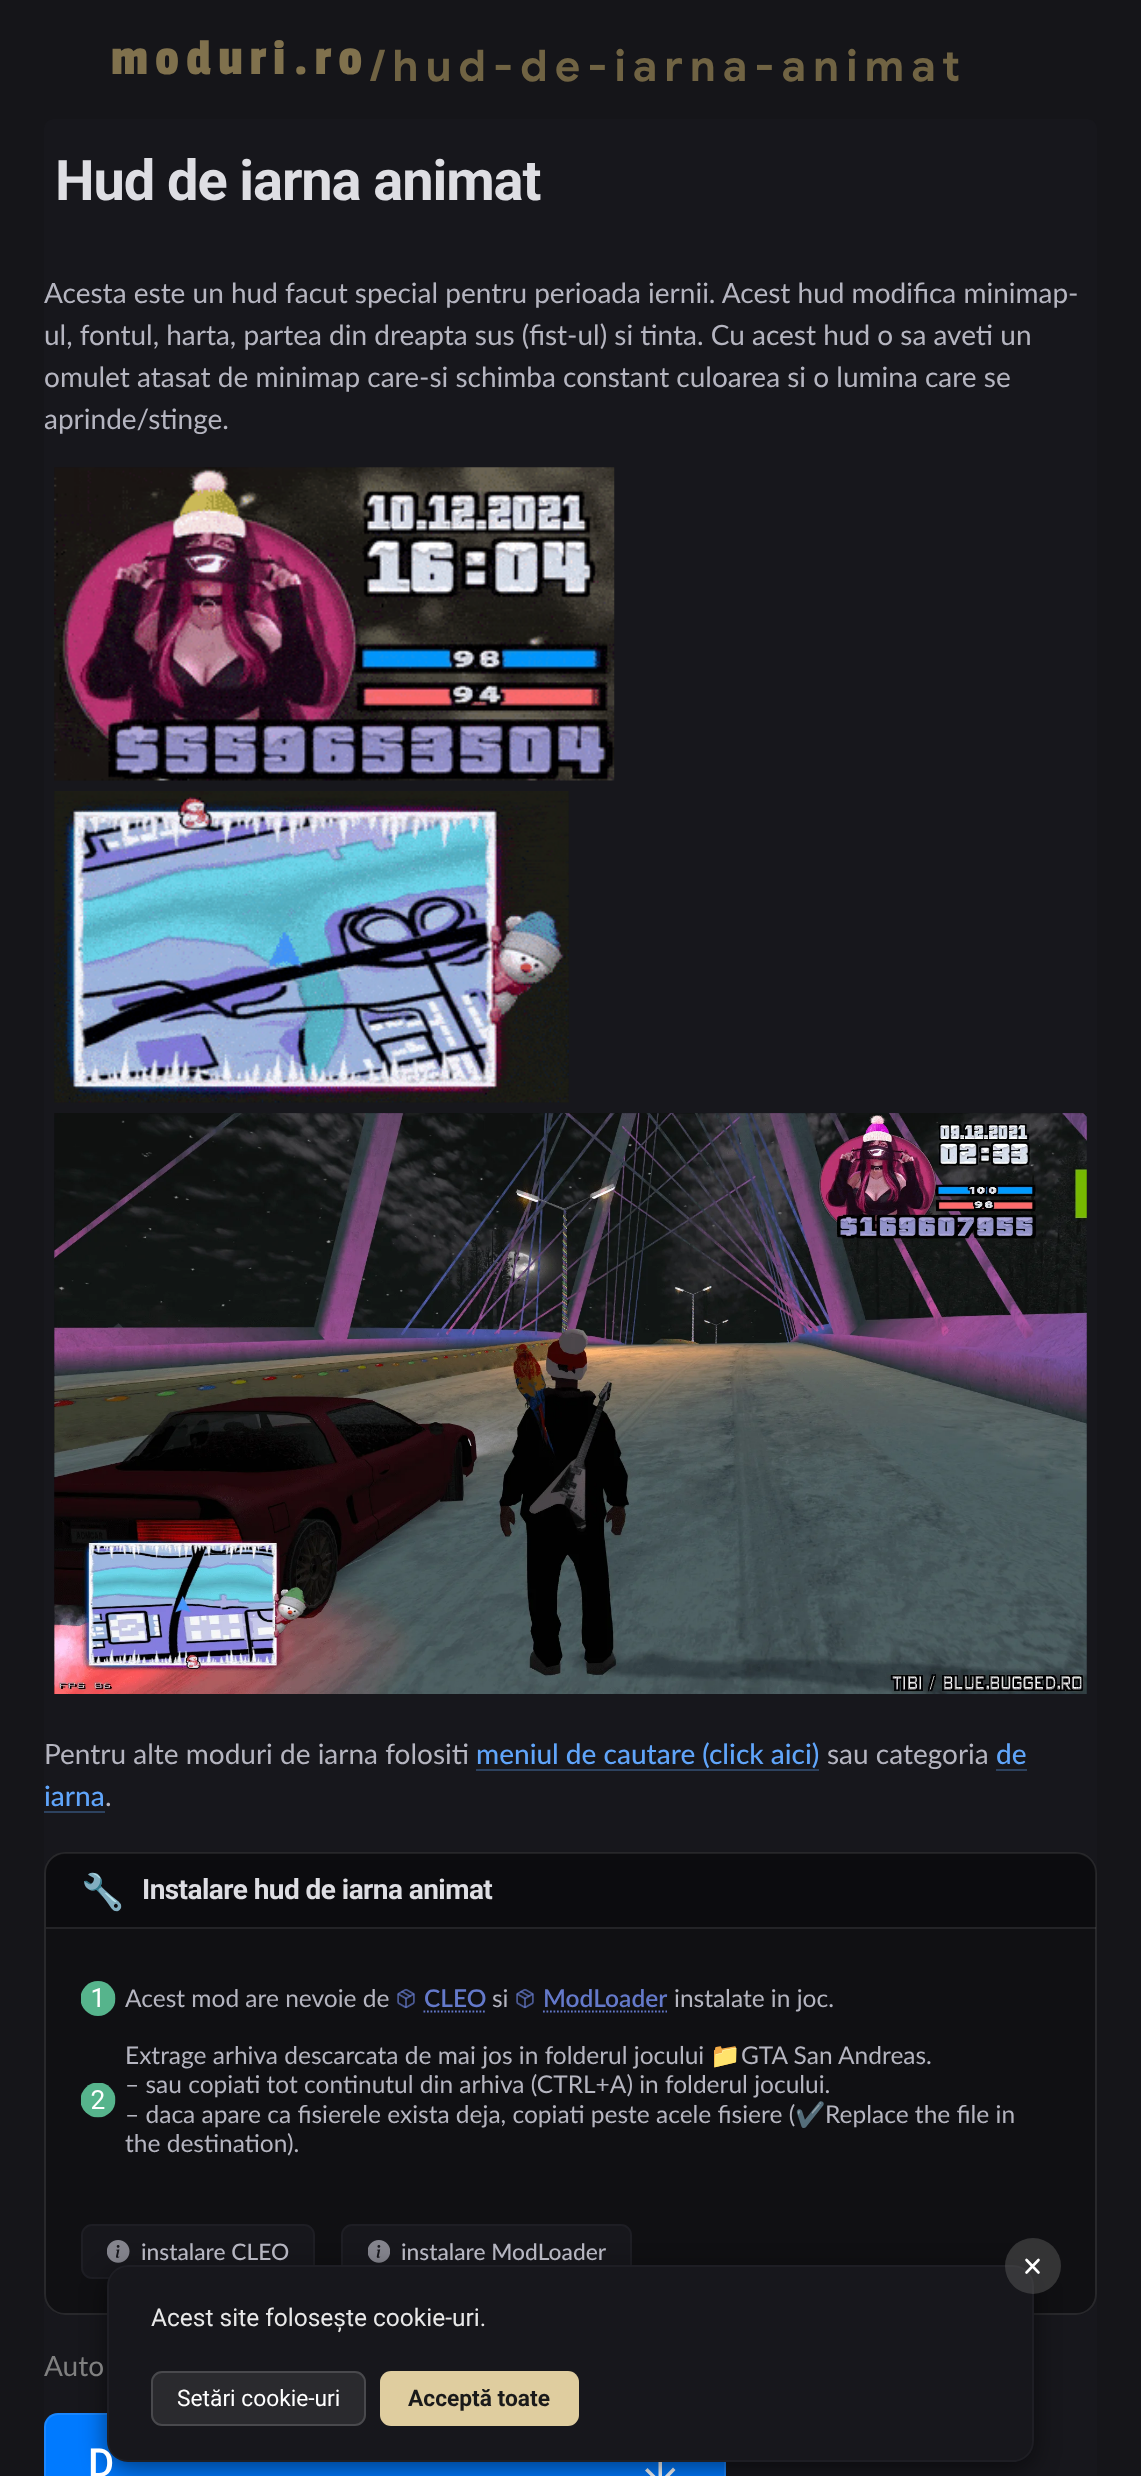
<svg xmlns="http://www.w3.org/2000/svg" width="1141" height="2476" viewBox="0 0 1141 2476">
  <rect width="100%" height="100%" fill="#151519"/>
  <rect x="44" y="119" width="1053" height="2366" rx="9" fill="#17171c"/>
  <image x="54" y="467" width="561" height="314" href="img/1.png"/>
  <image x="54" y="791" width="515" height="312" href="img/2.png"/>
  <image x="54" y="1113" width="1033" height="581" href="img/3.png"/>
  <path d="M476 1769h343v2H476z" fill="#2d425f"/>
  <path d="M996 1769h31v2H996z" fill="#2d425f"/>
  <path d="M44 1811h61v2H44z" fill="#2d425f"/>
  <rect x="44" y="1852" width="1053" height="463" rx="21" fill="#101013"/>
  <rect x="45" y="1853" width="1051" height="461" rx="20" fill="none" stroke="#ffffff1a" stroke-width="2"/>
  <path d="M67 1853H1075C1086.5 1853 1096 1862.5 1096 1874V1929H46V1874C46 1862.5 55.5 1853 67 1853Z" fill="#00000033"/>
  <path d="M46 1927h1050v2H46z" fill="#ffffff1a"/>
  <image x="81" y="1981" width="35" height="35" href="img/4.png"/>
  <image x="397" y="1988" width="18" height="21" href="img/5.png"/>
  <path d="M423.5 2011.5H486" fill="none" stroke="#6479ca" stroke-width="1.8" stroke-dasharray="1.75 1.75"/>
  <image x="516" y="1988" width="18" height="21" href="img/5.png"/>
  <path d="M543 2011.5H667" fill="none" stroke="#6479ca" stroke-width="1.8" stroke-dasharray="1.75 1.75"/>
  <image x="81" y="2083" width="35" height="35" href="img/6.png"/>
  <rect x="82" y="2225" width="232" height="53" rx="10" fill="#17171c" stroke="#1e1e24" stroke-width="2"/>
  <image x="107" y="2240" width="23" height="23" href="img/7.png"/>
  <rect x="342" y="2225" width="289" height="53" rx="10" fill="#17171c" stroke="#1e1e24" stroke-width="2"/>
  <image x="368" y="2240" width="22" height="23" href="img/8.png"/>
  <rect x="44" y="2413" width="682" height="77" rx="14" fill="#007aff"/>
  <rect x="45" y="2414" width="680" height="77" rx="13" fill="none" stroke="#ffffff1a" stroke-width="2"/>
  <path d="M675.5 2470L673 2467.5L662 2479V2455H658.5V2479L647.5 2468L645 2470.5L660.5 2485.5Z" fill="#fff"/>
  <rect x="107" y="2272" width="927" height="197" rx="21" fill="#00000080" filter="blur(13px)"/>
  <text x="111" y="74" font-family="Passion One" font-size="52.5" letter-spacing="7" fill="#80714d">moduri.ro</text>
  <text x="370" y="81" font-family="Google Sans" font-size="43.75" font-weight="bold" letter-spacing="7" fill="#706343">/hud-de-iarna-animat</text>
  <text x="55" y="200" font-family="Roboto" font-size="56" font-weight="bold" letter-spacing="-1.1" fill="#dedee3">Hud de iarna animat</text>
  <g font-family="Lato" font-size="28" fill="#b5b5c0">
    <text x="44" y="303">Acesta este un hud facut special pentru perioada iernii. Acest hud modifica minimap-</text>
    <text x="44" y="345">ul, fontul, harta, partea din dreapta sus (fist-ul) si tinta. Cu acest hud o sa aveti un</text>
    <text x="44" y="387">omulet atasat de minimap care-si schimba constant culoarea si o lumina care se</text>
    <text x="44" y="429">aprinde/stinge.</text>
    <text x="44" y="1764">Pentru alte moduri de iarna folositi</text>
  </g>
  <text x="476" y="1764" font-family="Lato" font-size="28" font-weight="500" fill="#60a5fa">meniul de cautare (click aici)</text>
  <text x="827" y="1764" font-family="Lato" font-size="28" fill="#b5b5c0">sau categoria</text>
  <g font-family="Lato" font-size="28" font-weight="500" fill="#60a5fa">
    <text x="996" y="1764">de</text>
    <text x="44" y="1806">iarna</text>
  </g>
  <text x="105" y="1806" font-family="Lato" font-size="28" fill="#b5b5c0">.</text>
  <text x="81" y="1904" font-family="Noto Color Emoji" font-size="35" fill="#b5b5c0">🔧</text>
  <text x="142" y="1899" font-family="Roboto" font-size="28" font-weight="bold" letter-spacing="-0.55" fill="#dedee3">Instalare hud de iarna animat</text>
  <text x="125" y="2007" font-family="Lato" font-size="24.5" fill="#b5b5c0">Acest mod are nevoie de</text>
  <text x="424" y="2007" font-family="Lato" font-size="24.5" font-weight="600" fill="#6479ca">CLEO</text>
  <text x="492" y="2007" font-family="Lato" font-size="24.5" fill="#b5b5c0">si</text>
  <text x="543" y="2007" font-family="Lato" font-size="24.5" font-weight="600" fill="#6479ca">ModLoader</text>
  <g font-family="Lato" font-size="24.5" fill="#b5b5c0">
    <text x="674" y="2007">instalate in joc.</text>
    <text x="125" y="2064">Extrage arhiva descarcata de mai jos in folderul jocului</text>
  </g>
  <text x="710" y="2064" font-family="Noto Color Emoji" font-size="24.5" fill="#b5b5c0">📁</text>
  <g font-family="Lato" font-size="24.5" fill="#b5b5c0">
    <text x="741" y="2064">GTA San Andreas.</text>
    <text x="125" y="2093">– sau copiati tot continutul din arhiva (CTRL+A) in folderul jocului.</text>
    <text x="125" y="2123">– daca apare ca fisierele exista deja, copiati peste acele fisiere (</text>
  </g>
  <text x="795" y="2123" font-family="Noto Color Emoji" font-size="24.5" fill="#b5b5c0">✔️</text>
  <g font-family="Lato" font-size="24.5" fill="#b5b5c0">
    <text x="825" y="2123">Replace the file in</text>
    <text x="125" y="2152">the destination).</text>
  </g>
  <g font-family="Lato" font-size="22.75" font-weight="500" fill="#b5b5c0">
    <text x="141" y="2260">instalare CLEO</text>
    <text x="401" y="2260">instalare ModLoader</text>
  </g>
  <text x="44" y="2376" font-family="Lato" font-size="28" fill="#808080">Auto</text>
  <text x="88" y="2477" font-family="Roboto" font-size="40" font-weight="500" fill="#fff">D</text>
  <rect x="108" y="2266" width="925" height="195" rx="20" fill="#17171c" stroke="#1e1e24" stroke-width="2"/>
  <circle cx="1033" cy="2266" r="28" fill="#55555587"/>
  <path d="M1038.5 2260L1026.5 2272.5M1026.5 2260L1038.5 2272.5" fill="none" stroke="#fff" stroke-width="2.6" stroke-linecap="round" stroke-linejoin="round"/>
  <text x="151" y="2326" font-family="Roboto" font-size="24.5" fill="#e8e8e8">Acest site folosește cookie-uri.</text>
  <rect x="151" y="2371" width="215" height="55" rx="11" fill="#2a2a2e"/>
  <rect x="152" y="2372" width="213" height="53" rx="10" fill="none" stroke="#ffffff26" stroke-width="2"/>
  <text x="177" y="2406" font-family="Roboto" font-size="22.75" fill="#fff">Setări cookie-uri</text>
  <rect x="380" y="2371" width="199" height="55" rx="11" fill="#dfcd9f"/>
  <text x="408" y="2406" font-family="Roboto" font-size="22.75" font-weight="bold" fill="#1a1a1a">Acceptă toate</text>
</svg>
